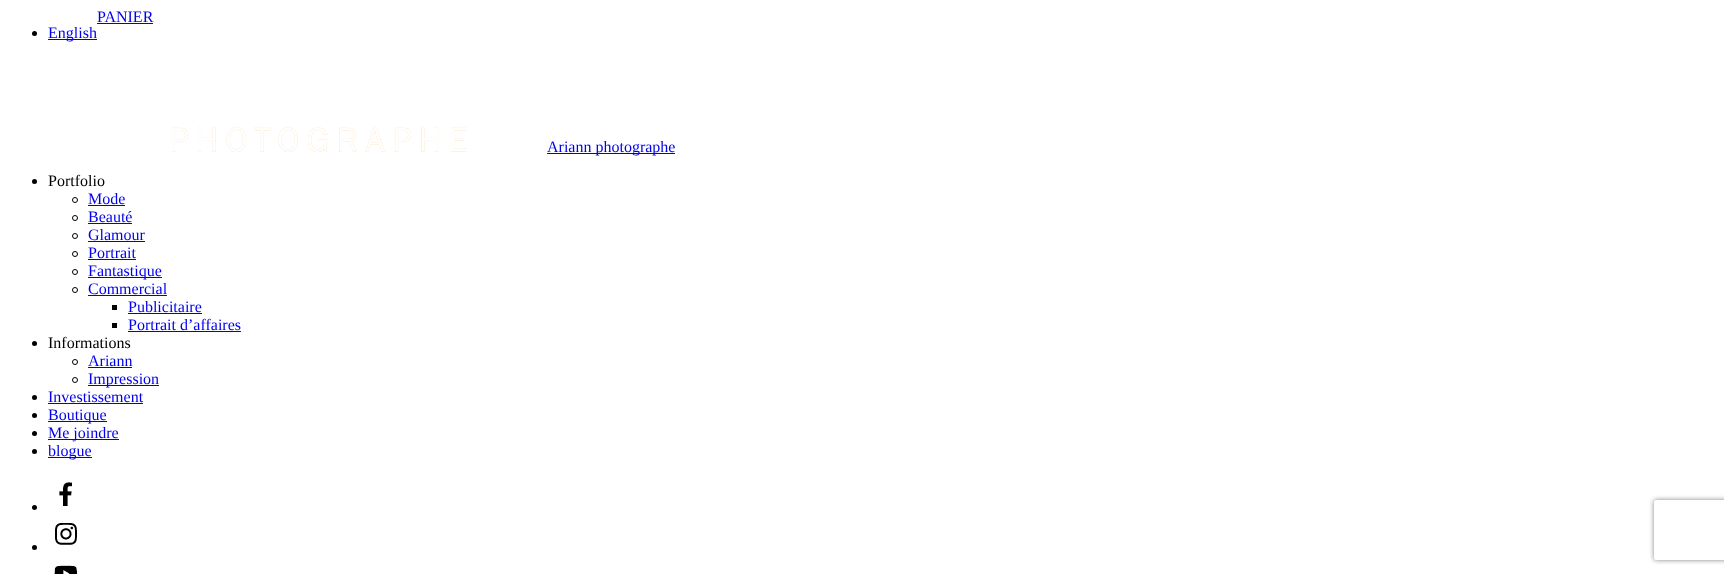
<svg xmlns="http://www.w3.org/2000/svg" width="1724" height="574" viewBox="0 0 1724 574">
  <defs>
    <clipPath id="clip1"><path d="M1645 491H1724V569H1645ZM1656 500H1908C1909 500 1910 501 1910 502V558C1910 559 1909 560 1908 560H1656C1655 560 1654 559 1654 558V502C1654 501 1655 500 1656 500Z" clip-rule="evenodd"/></clipPath>
  </defs>
  <rect width="100%" height="100%" fill="#fff"/>
  <path d="M97 23h56v1H97z" fill="#00e"/>
  <circle cx="34.5" cy="33.5" r="2.5" fill="#000"/>
  <path d="M48 39h49v1H48z" fill="#00e"/>
  <image x="172" y="127" width="295" height="25" href="img/1.png"/>
  <path d="M547 153h128v1H547z" fill="#00e"/>
  <circle cx="34.5" cy="181.5" r="2.5" fill="#000"/>
  <circle cx="75" cy="200" r="2.5" fill="none" stroke="#000"/>
  <path d="M88 205h37v1H88z" fill="#00e"/>
  <circle cx="75" cy="218" r="2.5" fill="none" stroke="#000"/>
  <path d="M88 223h44v1H88z" fill="#00e"/>
  <circle cx="75" cy="236" r="2.5" fill="none" stroke="#000"/>
  <path d="M88 241h57v1H88z" fill="#00e"/>
  <circle cx="75" cy="254" r="2.5" fill="none" stroke="#000"/>
  <path d="M88 259h48v1H88z" fill="#00e"/>
  <circle cx="75" cy="272" r="2.5" fill="none" stroke="#000"/>
  <path d="M88 277h74v1H88z" fill="#00e"/>
  <circle cx="75" cy="290" r="2.5" fill="none" stroke="#000"/>
  <path d="M88 295h79v1H88z" fill="#00e"/>
  <path d="M112 305h5v5H112z" fill="#000"/>
  <path d="M128 313h74v1H128z" fill="#00e"/>
  <path d="M112 323h5v5H112z" fill="#000"/>
  <path d="M128 331h113v1H128z" fill="#00e"/>
  <circle cx="34.5" cy="343.5" r="2.5" fill="#000"/>
  <circle cx="75" cy="362" r="2.5" fill="none" stroke="#000"/>
  <path d="M88 367h44v1H88z" fill="#00e"/>
  <circle cx="75" cy="380" r="2.5" fill="none" stroke="#000"/>
  <path d="M88 385h71v1H88z" fill="#00e"/>
  <circle cx="34.5" cy="397.5" r="2.5" fill="#000"/>
  <path d="M48 403h95v1H48z" fill="#00e"/>
  <circle cx="34.5" cy="415.5" r="2.5" fill="#000"/>
  <path d="M48 421h59v1H48z" fill="#00e"/>
  <circle cx="34.5" cy="433.5" r="2.5" fill="#000"/>
  <path d="M48 439h71v1H48z" fill="#00e"/>
  <circle cx="34.5" cy="451.5" r="2.5" fill="#000"/>
  <path d="M48 457h44v1H48z" fill="#00e"/>
  <image x="59" y="482" width="13" height="24" href="img/2.png"/>
  <circle cx="34.5" cy="507.5" r="2.5" fill="#000"/>
  <image x="55" y="523" width="22" height="22" href="img/3.png"/>
  <circle cx="34.5" cy="547.5" r="2.5" fill="#000"/>
  <image x="54" y="565" width="23" height="9" href="img/4.png"/>
  <g clip-path="url(#clip1)">
    <rect x="1654" y="500" width="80" height="60" rx="2" fill="#808080" filter="blur(2.5px)"/>
  </g>
  <g font-family="Liberation Serif" font-size="16" fill="#00e">
    <text x="97" y="22">PANIER</text>
    <text x="48" y="38">English</text>
    <text x="547" y="152">Ariann photographe</text>
  </g>
  <text x="48" y="186" font-family="Liberation Serif" font-size="16" fill="#000">Portfolio</text>
  <g font-family="Liberation Serif" font-size="16" fill="#00e">
    <text x="88" y="204">Mode</text>
    <text x="88" y="222">Beauté</text>
    <text x="88" y="240">Glamour</text>
    <text x="88" y="258">Portrait</text>
    <text x="88" y="276">Fantastique</text>
    <text x="88" y="294">Commercial</text>
    <text x="128" y="312">Publicitaire</text>
    <text x="128" y="330">Portrait d’affaires</text>
  </g>
  <text x="48" y="348" font-family="Liberation Serif" font-size="16" fill="#000">Informations</text>
  <g font-family="Liberation Serif" font-size="16" fill="#00e">
    <text x="88" y="366">Ariann</text>
    <text x="88" y="384">Impression</text>
    <text x="48" y="402">Investissement</text>
    <text x="48" y="420">Boutique</text>
    <text x="48" y="438">Me joindre</text>
    <text x="48" y="456">blogue</text>
  </g>
</svg>
